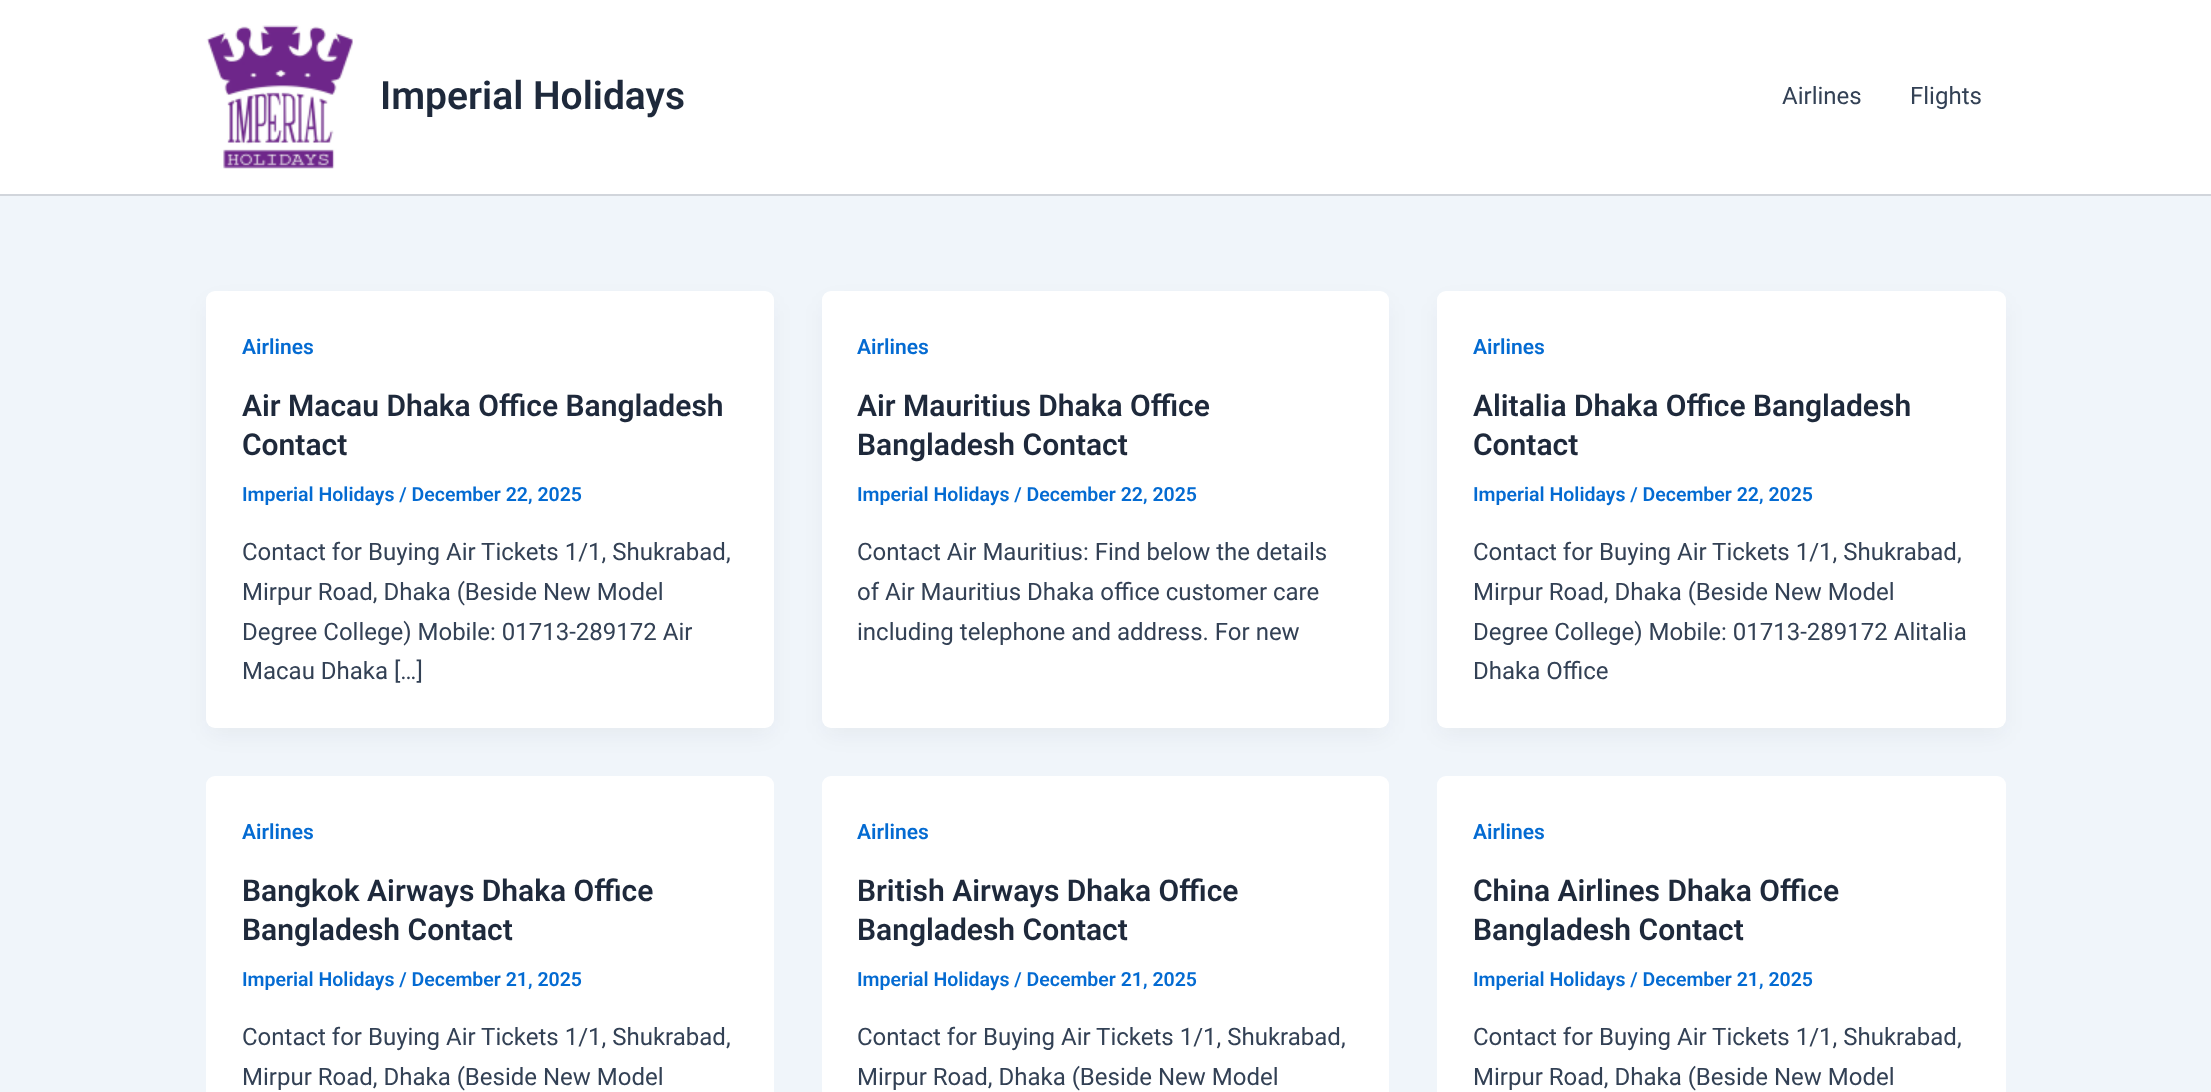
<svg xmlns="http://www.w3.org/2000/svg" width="2211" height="1092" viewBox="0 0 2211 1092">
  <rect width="100%" height="100%" fill="#f0f5fa"/>
  <path d="M0 0h2211v194H0z" fill="#fff"/>
  <path d="M0 194h2211v2H0z" fill="#d1d5db"/>
  <image x="206" y="25" width="147" height="144" href="img/1.png"/>
  <rect x="209" y="303" width="562" height="431" rx="6" fill="#1018280d" filter="blur(11px)"/>
  <rect x="206" y="291" width="568" height="437" rx="9" fill="#fff"/>
  <rect x="825" y="303" width="561" height="431" rx="6" fill="#1018280d" filter="blur(11px)"/>
  <rect x="822" y="291" width="567" height="437" rx="9" fill="#fff"/>
  <rect x="1440" y="303" width="563" height="431" rx="6" fill="#1018280d" filter="blur(11px)"/>
  <rect x="1437" y="291" width="569" height="437" rx="9" fill="#fff"/>
  <rect x="206" y="776" width="568" height="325" rx="9" fill="#fff"/>
  <rect x="822" y="776" width="567" height="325" rx="9" fill="#fff"/>
  <rect x="1437" y="776" width="569" height="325" rx="9" fill="#fff"/>
  <text x="380" y="109" font-family="Roboto" font-size="39" font-weight="600" fill="#1e293b">Imperial Holidays</text>
  <g font-family="Roboto" font-size="24" fill="#334155">
    <text x="1782" y="104">Airlines</text>
    <text x="1910" y="104">Flights</text>
  </g>
  <text x="242" y="354" font-family="Roboto" font-size="21" font-weight="600" fill="#046bd2">Airlines</text>
  <g font-family="Roboto" font-size="30" font-weight="600" fill="#1e293b">
    <text x="242" y="416">Air Macau Dhaka Office Bangladesh</text>
    <text x="242" y="455">Contact</text>
  </g>
  <text x="242" y="501" font-family="Roboto" font-size="19.5" font-weight="600" fill="#046bd2">Imperial Holidays / December 22, 2025</text>
  <g font-family="Roboto" font-size="24" fill="#334155">
    <text x="242" y="560">Contact for Buying Air Tickets 1/1, Shukrabad,</text>
    <text x="242" y="600">Mirpur Road, Dhaka (Beside New Model</text>
    <text x="242" y="640">Degree College) Mobile: 01713-289172 Air</text>
    <text x="242" y="679">Macau Dhaka […]</text>
  </g>
  <text x="857" y="354" font-family="Roboto" font-size="21" font-weight="600" fill="#046bd2">Airlines</text>
  <g font-family="Roboto" font-size="30" font-weight="600" fill="#1e293b">
    <text x="857" y="416">Air Mauritius Dhaka Office</text>
    <text x="857" y="455">Bangladesh Contact</text>
  </g>
  <text x="857" y="501" font-family="Roboto" font-size="19.5" font-weight="600" fill="#046bd2">Imperial Holidays / December 22, 2025</text>
  <g font-family="Roboto" font-size="24" fill="#334155">
    <text x="857" y="560">Contact Air Mauritius: Find below the details</text>
    <text x="857" y="600">of Air Mauritius Dhaka office customer care</text>
    <text x="857" y="640">including telephone and address. For new</text>
  </g>
  <text x="1473" y="354" font-family="Roboto" font-size="21" font-weight="600" fill="#046bd2">Airlines</text>
  <g font-family="Roboto" font-size="30" font-weight="600" fill="#1e293b">
    <text x="1473" y="416">Alitalia Dhaka Office Bangladesh</text>
    <text x="1473" y="455">Contact</text>
  </g>
  <text x="1473" y="501" font-family="Roboto" font-size="19.5" font-weight="600" fill="#046bd2">Imperial Holidays / December 22, 2025</text>
  <g font-family="Roboto" font-size="24" fill="#334155">
    <text x="1473" y="560">Contact for Buying Air Tickets 1/1, Shukrabad,</text>
    <text x="1473" y="600">Mirpur Road, Dhaka (Beside New Model</text>
    <text x="1473" y="640">Degree College) Mobile: 01713-289172 Alitalia</text>
    <text x="1473" y="679">Dhaka Office</text>
  </g>
  <text x="242" y="839" font-family="Roboto" font-size="21" font-weight="600" fill="#046bd2">Airlines</text>
  <g font-family="Roboto" font-size="30" font-weight="600" fill="#1e293b">
    <text x="242" y="901">Bangkok Airways Dhaka Office</text>
    <text x="242" y="940">Bangladesh Contact</text>
  </g>
  <text x="242" y="986" font-family="Roboto" font-size="19.5" font-weight="600" fill="#046bd2">Imperial Holidays / December 21, 2025</text>
  <g font-family="Roboto" font-size="24" fill="#334155">
    <text x="242" y="1045">Contact for Buying Air Tickets 1/1, Shukrabad,</text>
    <text x="242" y="1085">Mirpur Road, Dhaka (Beside New Model</text>
  </g>
  <text x="857" y="839" font-family="Roboto" font-size="21" font-weight="600" fill="#046bd2">Airlines</text>
  <g font-family="Roboto" font-size="30" font-weight="600" fill="#1e293b">
    <text x="857" y="901">British Airways Dhaka Office</text>
    <text x="857" y="940">Bangladesh Contact</text>
  </g>
  <text x="857" y="986" font-family="Roboto" font-size="19.5" font-weight="600" fill="#046bd2">Imperial Holidays / December 21, 2025</text>
  <g font-family="Roboto" font-size="24" fill="#334155">
    <text x="857" y="1045">Contact for Buying Air Tickets 1/1, Shukrabad,</text>
    <text x="857" y="1085">Mirpur Road, Dhaka (Beside New Model</text>
  </g>
  <text x="1473" y="839" font-family="Roboto" font-size="21" font-weight="600" fill="#046bd2">Airlines</text>
  <g font-family="Roboto" font-size="30" font-weight="600" fill="#1e293b">
    <text x="1473" y="901">China Airlines Dhaka Office</text>
    <text x="1473" y="940">Bangladesh Contact</text>
  </g>
  <text x="1473" y="986" font-family="Roboto" font-size="19.5" font-weight="600" fill="#046bd2">Imperial Holidays / December 21, 2025</text>
  <g font-family="Roboto" font-size="24" fill="#334155">
    <text x="1473" y="1045">Contact for Buying Air Tickets 1/1, Shukrabad,</text>
    <text x="1473" y="1085">Mirpur Road, Dhaka (Beside New Model</text>
  </g>
</svg>
